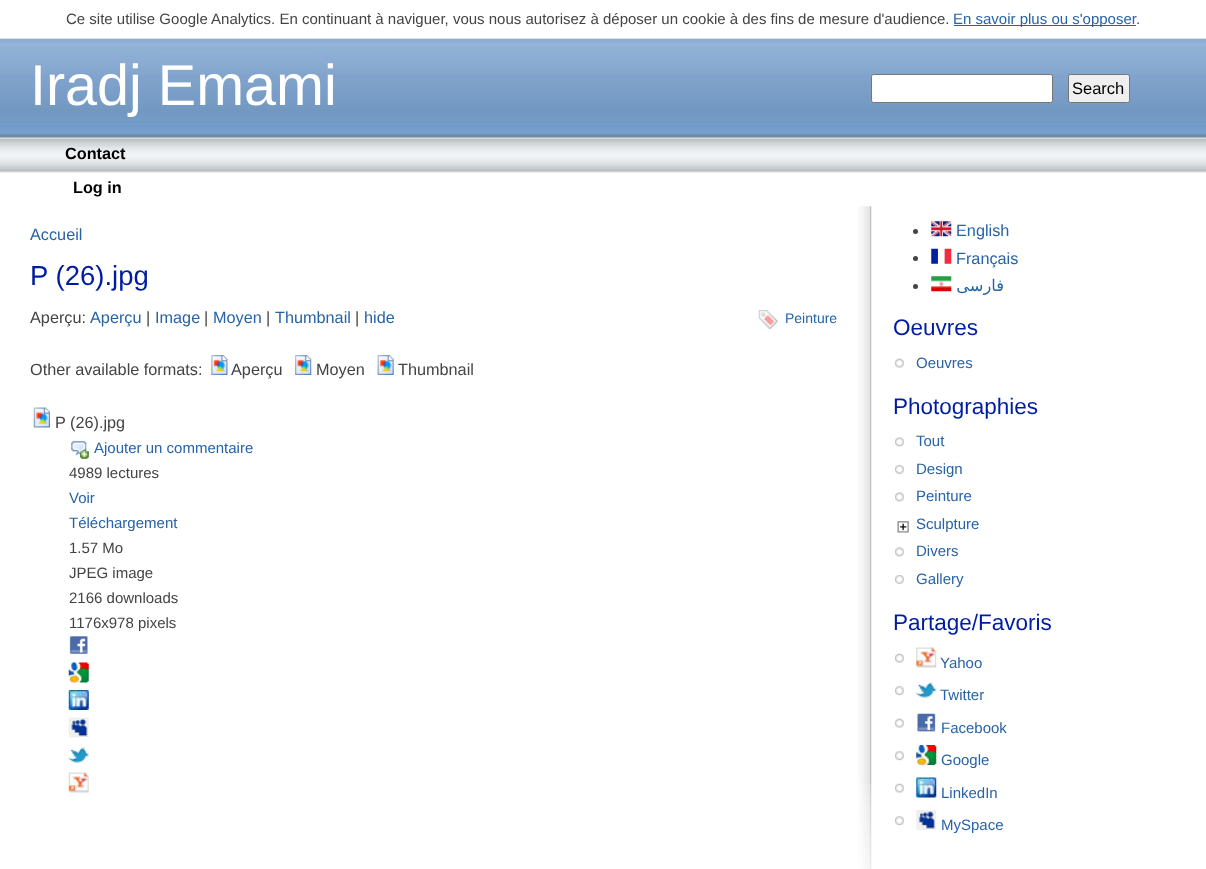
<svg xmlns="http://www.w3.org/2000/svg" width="1206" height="869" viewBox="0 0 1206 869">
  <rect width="100%" height="100%" fill="#fff"/>
  <path d="M0 38h1206v1H0z" fill="#eee"/>
  <path d="M954 25h182v1H954z" fill="#2763a5"/>
  <image x="0" y="38" width="1206" height="135" href="img/1.png"/>
  <rect x="871.5" y="74.5" width="181" height="28" rx="2" fill="#fff" stroke="#767676"/>
  <rect x="1068.5" y="74.5" width="61" height="28" rx="2" fill="#efefef" stroke="#767676"/>
  <image x="211" y="355" width="17" height="20" href="img/2.png"/>
  <image x="294" y="355" width="18" height="20" href="img/3.png"/>
  <image x="377" y="355" width="17" height="20" href="img/4.png"/>
  <image x="33" y="407" width="17" height="21" href="img/5.png"/>
  <image x="758" y="310" width="20" height="19" href="img/6.png"/>
  <image x="71" y="441" width="18" height="18" href="img/7.png"/>
  <image x="69" y="636" width="19" height="18" href="img/8.png"/>
  <image x="68" y="662" width="21" height="21" href="img/9.png"/>
  <image x="68" y="690" width="21" height="20" href="img/10.png"/>
  <image x="68" y="717" width="21" height="21" href="img/11.png"/>
  <image x="68" y="747" width="21" height="16" href="img/12.png"/>
  <image x="68" y="772" width="21" height="21" href="img/13.png"/>
  <image x="858" y="206" width="14" height="663" href="img/14.png"/>
  <circle cx="915.5" cy="231.5" r="2.5" fill="#444"/>
  <image x="931" y="221" width="21" height="16" href="img/15.png"/>
  <circle cx="915.5" cy="258.5" r="2.5" fill="#444"/>
  <image x="931" y="248" width="21" height="16" href="img/16.png"/>
  <circle cx="915.5" cy="286.5" r="2.5" fill="#444"/>
  <image x="931" y="276" width="21" height="16" href="img/17.png"/>
  <image x="895" y="358" width="9" height="10" href="img/18.png"/>
  <image x="895" y="437" width="9" height="10" href="img/19.png"/>
  <image x="895" y="465" width="9" height="9" href="img/20.png"/>
  <image x="895" y="492" width="9" height="10" href="img/19.png"/>
  <image x="897" y="521" width="12" height="12" href="img/21.png"/>
  <image x="895" y="547" width="9" height="10" href="img/19.png"/>
  <image x="895" y="575" width="9" height="9" href="img/20.png"/>
  <image x="895" y="653" width="9" height="10" href="img/18.png"/>
  <image x="916" y="647" width="21" height="21" href="img/22.png"/>
  <image x="895" y="686" width="9" height="10" href="img/23.png"/>
  <image x="916" y="682" width="21" height="16" href="img/24.png"/>
  <image x="895" y="718" width="9" height="10" href="img/18.png"/>
  <image x="917" y="713" width="19" height="19" href="img/25.png"/>
  <image x="895" y="751" width="9" height="10" href="img/23.png"/>
  <image x="916" y="745" width="21" height="20" href="img/26.png"/>
  <image x="895" y="783" width="9" height="10" href="img/18.png"/>
  <image x="916" y="777" width="21" height="21" href="img/27.png"/>
  <image x="895" y="816" width="9" height="10" href="img/23.png"/>
  <image x="916" y="810" width="21" height="20" href="img/28.png"/>
  <text x="66" y="24" font-family="Liberation Sans" font-size="15" fill="#444">Ce site utilise Google Analytics. En continuant à naviguer, vous nous autorisez à déposer un cookie à des fins de mesure d'audience.</text>
  <text x="953" y="24" font-family="Liberation Sans" font-size="15" fill="#2763a5">En savoir plus ou s'opposer</text>
  <text x="1136" y="24" font-family="Liberation Sans" font-size="15" fill="#444">.</text>
  <text x="30" y="105" font-family="Liberation Sans" font-size="57.5" fill="#fff">Iradj Emami</text>
  <text x="1072" y="94" font-family="Liberation Sans" font-size="16.5" fill="#000">Search</text>
  <g font-family="Liberation Sans" font-size="16.25" font-weight="bold" fill="#000">
    <text x="65" y="159">Contact</text>
    <text x="73" y="193">Log in</text>
  </g>
  <text x="30" y="240" font-family="Liberation Sans" font-size="16.25" fill="#2763a5">Accueil</text>
  <text x="30" y="285" font-family="Liberation Sans" font-size="27.5" fill="#011ca1">P (26).jpg</text>
  <text x="30" y="323" font-family="Liberation Sans" font-size="16.25" fill="#444">Aperçu:</text>
  <text x="90" y="323" font-family="Liberation Sans" font-size="16.25" fill="#2763a5">Aperçu</text>
  <text x="146" y="323" font-family="Liberation Sans" font-size="16.25" fill="#444">|</text>
  <text x="155" y="323" font-family="Liberation Sans" font-size="16.25" fill="#2763a5">Image</text>
  <text x="204" y="323" font-family="Liberation Sans" font-size="16.25" fill="#444">|</text>
  <text x="213" y="323" font-family="Liberation Sans" font-size="16.25" fill="#2763a5">Moyen</text>
  <text x="266" y="323" font-family="Liberation Sans" font-size="16.25" fill="#444">|</text>
  <text x="275" y="323" font-family="Liberation Sans" font-size="16.25" fill="#2763a5">Thumbnail</text>
  <text x="355" y="323" font-family="Liberation Sans" font-size="16.25" fill="#444">|</text>
  <text x="364" y="323" font-family="Liberation Sans" font-size="16.25" fill="#2763a5">hide</text>
  <g font-family="Liberation Sans" font-size="16.25" fill="#444">
    <text x="30" y="375">Other available formats:</text>
    <text x="231" y="375">Aperçu</text>
    <text x="316" y="375">Moyen</text>
    <text x="398" y="375">Thumbnail</text>
    <text x="55" y="428">P (26).jpg</text>
  </g>
  <text x="785" y="323" font-family="Liberation Sans" font-size="14" fill="#2763a5">Peinture</text>
  <text x="94" y="453" font-family="Liberation Sans" font-size="15" fill="#2763a5">Ajouter un commentaire</text>
  <text x="69" y="478" font-family="Liberation Sans" font-size="15" fill="#444">4989 lectures</text>
  <g font-family="Liberation Sans" font-size="15" fill="#2763a5">
    <text x="69" y="503">Voir</text>
    <text x="69" y="528">Téléchargement</text>
  </g>
  <g font-family="Liberation Sans" font-size="15" fill="#444">
    <text x="69" y="553">1.57 Mo</text>
    <text x="69" y="578">JPEG image</text>
    <text x="69" y="603">2166 downloads</text>
    <text x="69" y="628">1176x978 pixels</text>
  </g>
  <g font-family="Liberation Sans" font-size="16.25" fill="#2763a5">
    <text x="956" y="236">English</text>
    <text x="956" y="264">Français</text>
  </g>
  <text x="1004" y="291" font-family="DejaVu Sans" font-size="16.25" direction="rtl" fill="#2763a5">فارسی</text>
  <text x="893" y="335" font-family="Liberation Sans" font-size="22.5" fill="#011ca1">Oeuvres</text>
  <text x="916" y="368" font-family="Liberation Sans" font-size="15" fill="#2763a5">Oeuvres</text>
  <text x="893" y="414" font-family="Liberation Sans" font-size="22.5" fill="#011ca1">Photographies</text>
  <g font-family="Liberation Sans" font-size="15" fill="#2763a5">
    <text x="916" y="446">Tout</text>
    <text x="916" y="474">Design</text>
    <text x="916" y="501">Peinture</text>
    <text x="916" y="529">Sculpture</text>
    <text x="916" y="556">Divers</text>
    <text x="916" y="584">Gallery</text>
  </g>
  <text x="893" y="630" font-family="Liberation Sans" font-size="22.5" fill="#011ca1">Partage/Favoris</text>
  <g font-family="Liberation Sans" font-size="15" fill="#2763a5">
    <text x="940" y="668">Yahoo</text>
    <text x="940" y="700">Twitter</text>
    <text x="941" y="733">Facebook</text>
    <text x="941" y="765">Google</text>
    <text x="941" y="798">LinkedIn</text>
    <text x="941" y="830">MySpace</text>
  </g>
</svg>
